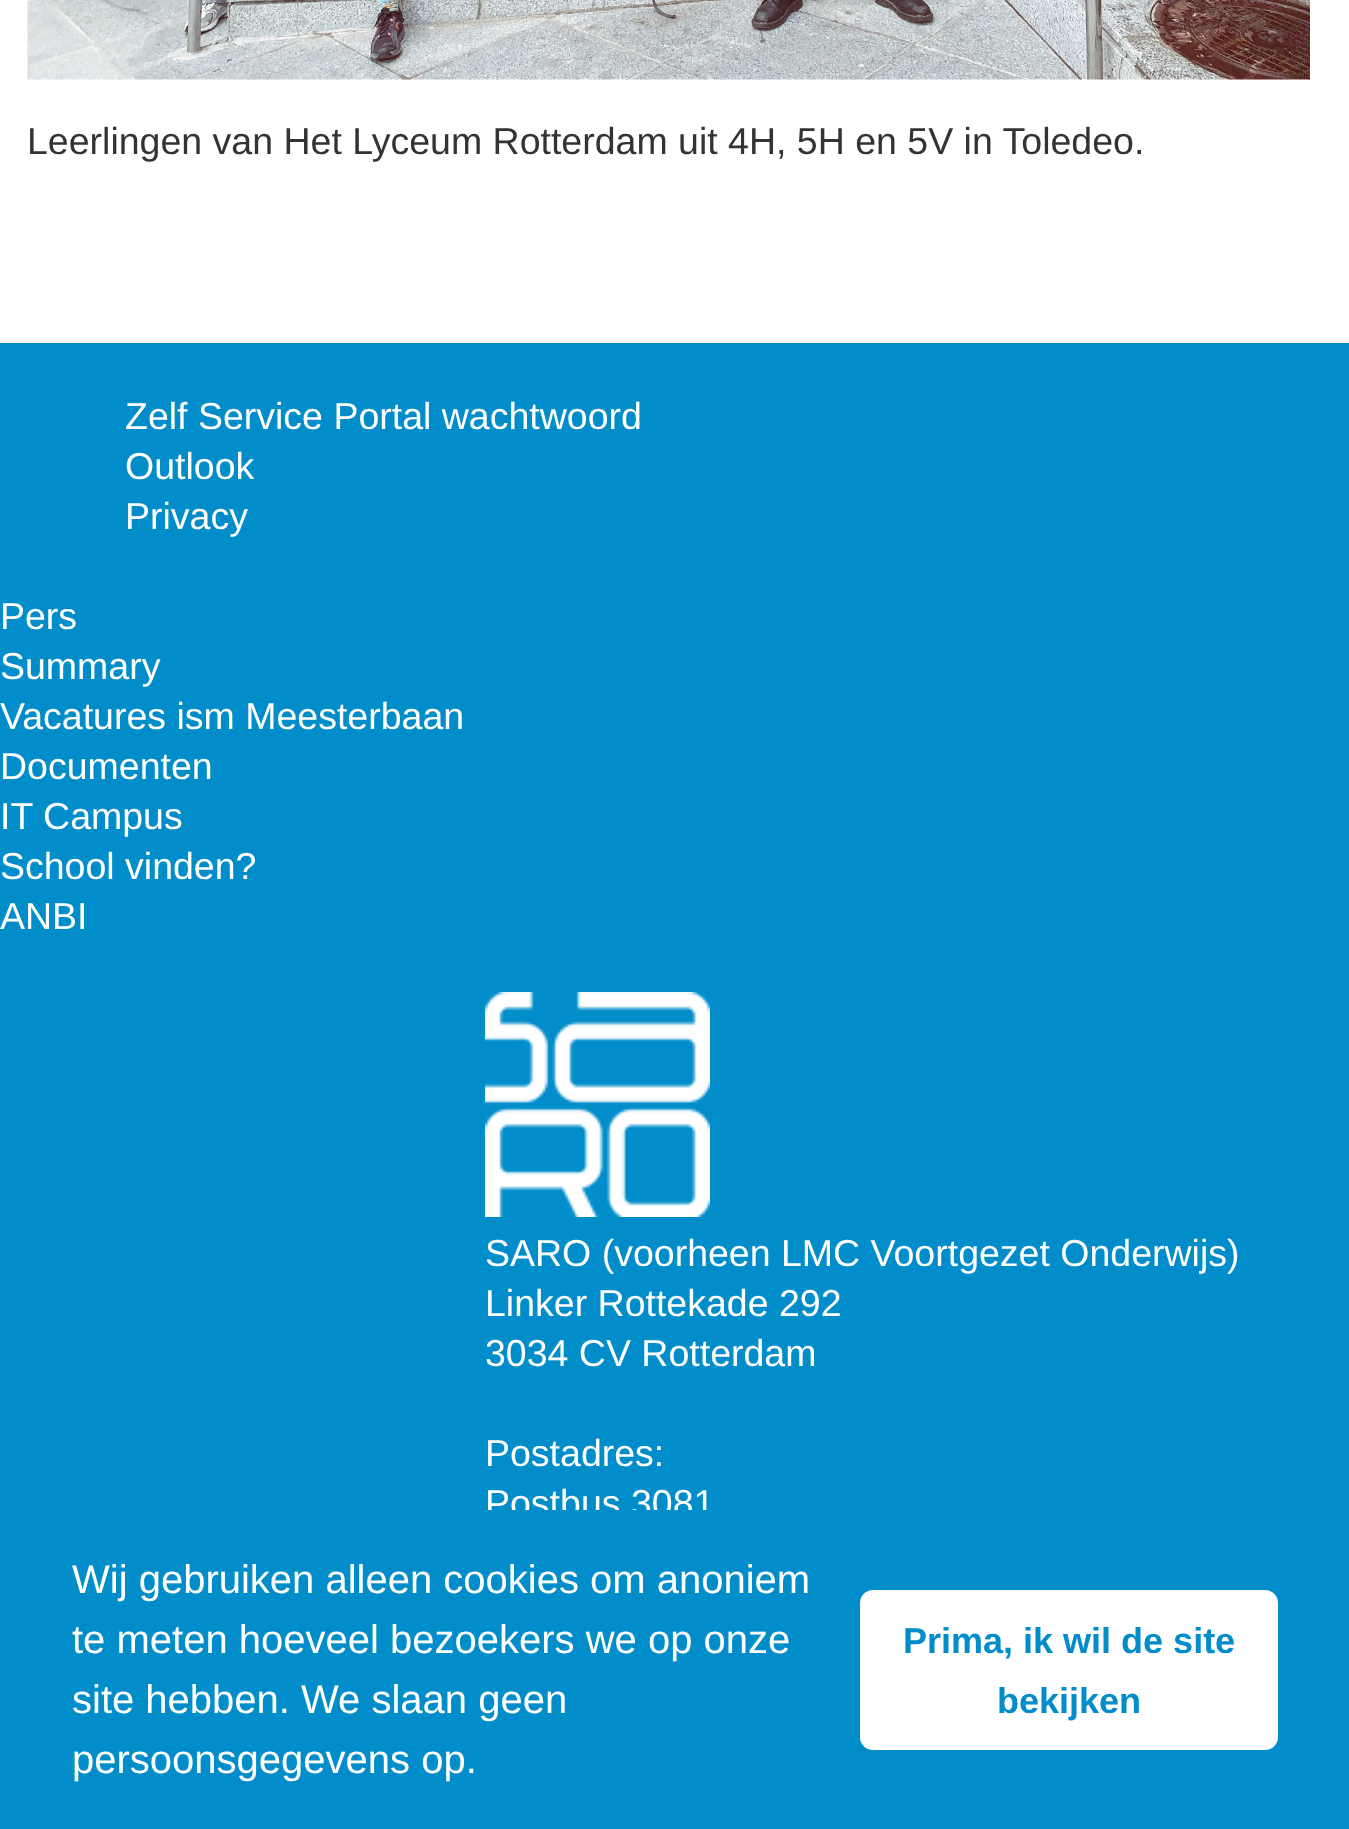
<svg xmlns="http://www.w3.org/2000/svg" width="1349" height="1829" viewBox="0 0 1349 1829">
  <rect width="100%" height="100%" fill="#fff"/>
  <image x="27" y="0" width="1283" height="80" href="img/1.png"/>
  <path d="M0 343h1349v1167H0z" fill="#008dc9"/>
  <image x="485" y="992" width="225" height="225" href="img/2.png"/>
  <text x="27" y="154" font-family="Liberation Sans" font-size="37.5" fill="#333">Leerlingen van Het Lyceum Rotterdam uit 4H, 5H en 5V in Toledeo.</text>
  <g font-family="Liberation Sans" font-size="37.5" fill="#fff">
    <text x="125" y="429">Zelf Service Portal wachtwoord</text>
    <text x="125" y="479">Outlook</text>
    <text x="125" y="529">Privacy</text>
    <text x="0" y="629">Pers</text>
    <text x="0" y="679">Summary</text>
    <text x="0" y="729">Vacatures ism Meesterbaan</text>
    <text x="0" y="779">Documenten</text>
    <text x="0" y="829">IT Campus</text>
    <text x="0" y="879">School vinden?</text>
    <text x="0" y="929">ANBI</text>
    <text x="485" y="1266">SARO (voorheen LMC Voortgezet Onderwijs)</text>
    <text x="485" y="1316">Linker Rottekade 292</text>
    <text x="485" y="1366">3034 CV Rotterdam</text>
    <text x="485" y="1466">Postadres:</text>
    <text x="485" y="1516">Postbus 3081</text>
  </g>
  <path d="M0 1510h1349v319H0z" fill="#008dc9"/>
  <g font-family="Liberation Sans" font-size="40" fill="#fff">
    <text x="72" y="1593">Wij gebruiken alleen cookies om anoniem</text>
    <text x="72" y="1653">te meten hoeveel bezoekers we op onze</text>
    <text x="72" y="1713">site hebben. We slaan geen</text>
    <text x="72" y="1773">persoonsgegevens op.</text>
  </g>
  <rect x="860" y="1590" width="418" height="160" rx="13" fill="#fff"/>
  <g font-family="Liberation Sans" font-size="36" font-weight="bold" fill="#008dc9">
    <text x="903" y="1653">Prima, ik wil de site</text>
    <text x="997" y="1713">bekijken</text>
  </g>
</svg>
